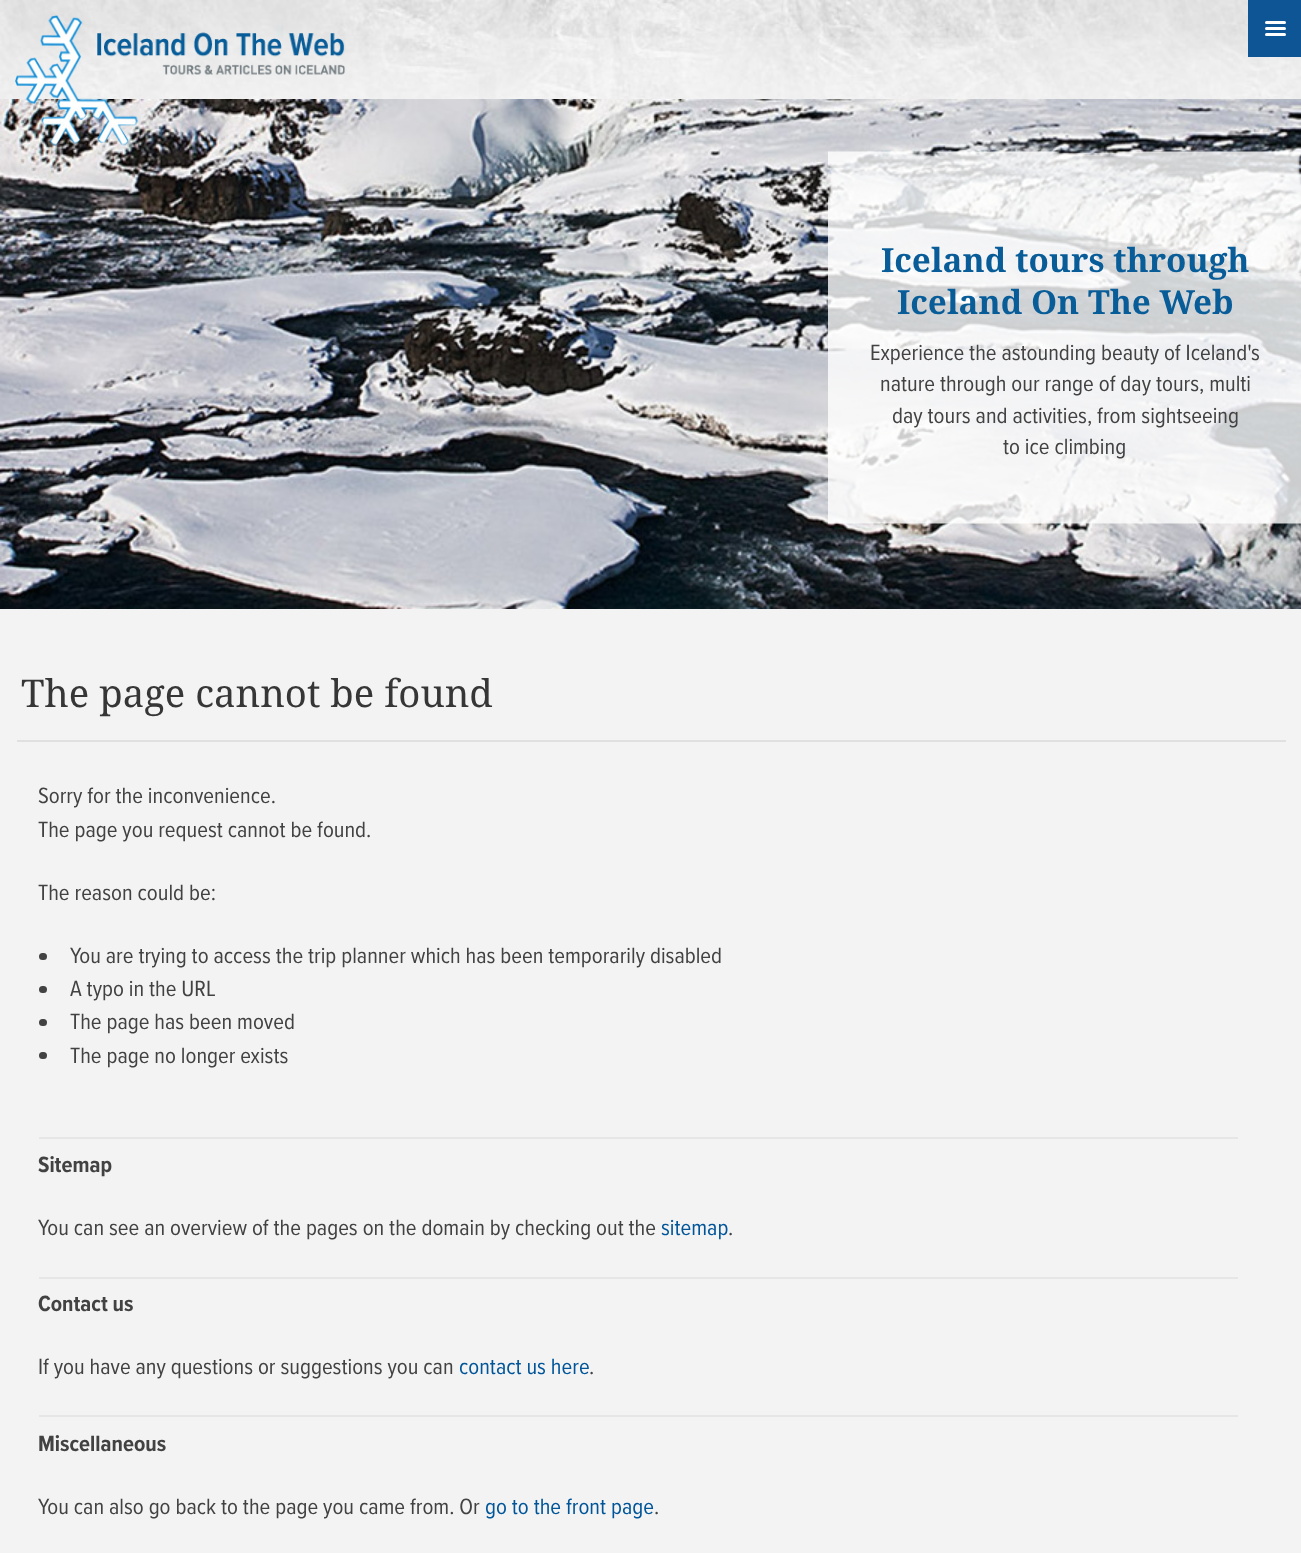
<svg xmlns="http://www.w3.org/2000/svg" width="1301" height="1553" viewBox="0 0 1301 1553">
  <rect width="100%" height="100%" fill="#f3f3f3"/>
  <image x="0" y="0" width="1301" height="99" href="img/1.png"/>
  <image x="0" y="99" width="1301" height="510" href="img/3.png"/>
  <image x="15" y="15" width="330" height="131" href="img/2.png"/>
  <path d="M1248 0h53v57H1248z" fill="#0d5594"/>
  <rect x="1265" y="27" width="21" height="3" rx="1.5" fill="#fff"/>
  <rect x="1265" y="21" width="21" height="3" rx="1.5" fill="#fff"/>
  <rect x="1265" y="33" width="21" height="3" rx="1.5" fill="#fff"/>
  <image x="828" y="151" width="473" height="373" href="img/4.png"/>
  <path d="M17 740h1269v2H17z" fill="#e0e0e0"/>
  <rect x="39" y="953" width="8" height="7" rx="3.5" fill="#424242"/>
  <rect x="39" y="986" width="8" height="7" rx="3.5" fill="#424242"/>
  <rect x="39" y="1019" width="8" height="7" rx="3.5" fill="#424242"/>
  <rect x="39" y="1052" width="8" height="7" rx="3.5" fill="#424242"/>
  <path d="M39 1137h1199v2H39z" fill="#e6e6e6"/>
  <path d="M39 1277h1199v2H39z" fill="#e6e6e6"/>
  <path d="M39 1415h1199v2H39z" fill="#e6e6e6"/>
  <g font-family="Noto Serif" font-size="33.25" font-weight="bold" fill="#085d99">
    <text x="881" y="272">Iceland tours through</text>
    <text x="897" y="314">Iceland On The Web</text>
  </g>
  <g font-family="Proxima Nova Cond" font-size="22.9" fill="#424242">
    <text x="870" y="360">Experience the astounding beauty of Iceland's</text>
    <text x="880" y="391">nature through our range of day tours, multi</text>
    <text x="892" y="423">day tours and activities, from sightseeing</text>
    <text x="1003" y="454">to ice climbing</text>
  </g>
  <text x="21" y="707" font-family="Noto Serif" font-size="38.25" fill="#363636">The page cannot be found</text>
  <g font-family="Proxima Nova Cond" font-size="22.9" fill="#424242">
    <text x="38" y="803">Sorry for the inconvenience.</text>
    <text x="38" y="837">The page you request cannot be found.</text>
    <text x="38" y="900">The reason could be:</text>
    <text x="70" y="963">You are trying to access the trip planner which has been temporarily disabled</text>
    <text x="70" y="996">A typo in the URL</text>
    <text x="70" y="1029">The page has been moved</text>
    <text x="70" y="1063">The page no longer exists</text>
  </g>
  <text x="38" y="1172" font-family="Proxima Nova Cond" font-size="22.9" font-weight="bold" fill="#424242">Sitemap</text>
  <text x="38" y="1235" font-family="Proxima Nova Cond" font-size="22.9" fill="#424242">You can see an overview of the pages on the domain by checking out the</text>
  <text x="661" y="1235" font-family="Proxima Nova Cond" font-size="22.9" fill="#059">sitemap</text>
  <text x="728" y="1235" font-family="Proxima Nova Cond" font-size="22.9" fill="#424242">.</text>
  <text x="38" y="1311" font-family="Proxima Nova Cond" font-size="22.9" font-weight="bold" fill="#424242">Contact us</text>
  <text x="38" y="1374" font-family="Proxima Nova Cond" font-size="22.9" fill="#424242">If you have any questions or suggestions you can</text>
  <text x="459" y="1374" font-family="Proxima Nova Cond" font-size="22.9" fill="#059">contact us here</text>
  <text x="589" y="1374" font-family="Proxima Nova Cond" font-size="22.9" fill="#424242">.</text>
  <text x="38" y="1451" font-family="Proxima Nova Cond" font-size="22.9" font-weight="bold" fill="#424242">Miscellaneous</text>
  <text x="38" y="1514" font-family="Proxima Nova Cond" font-size="22.9" fill="#424242">You can also go back to the page you came from. Or</text>
  <text x="485" y="1514" font-family="Proxima Nova Cond" font-size="22.9" fill="#059">go to the front page</text>
  <text x="654" y="1514" font-family="Proxima Nova Cond" font-size="22.9" fill="#424242">.</text>
</svg>
